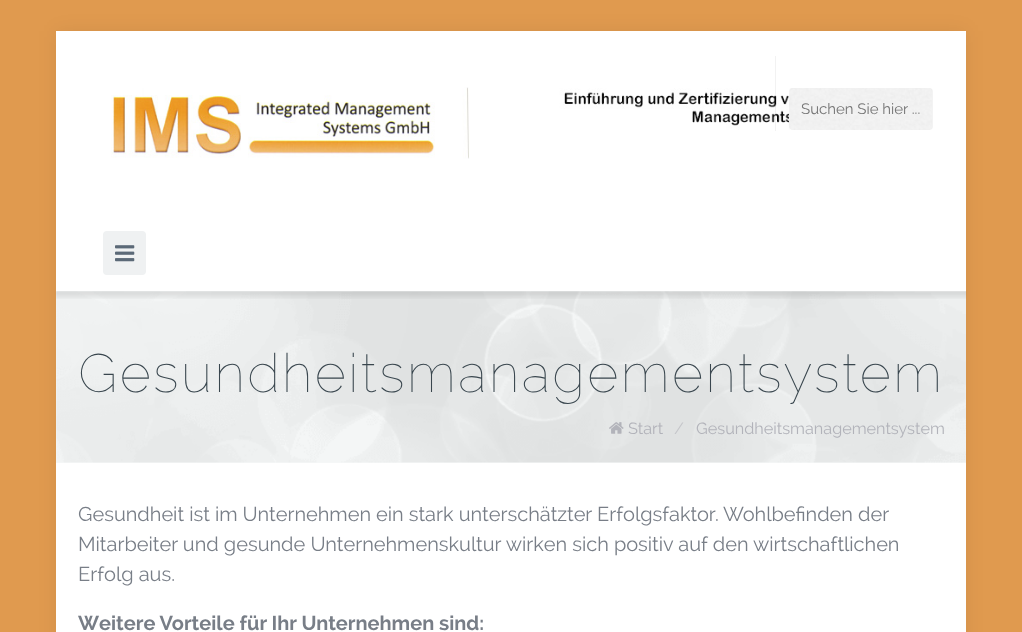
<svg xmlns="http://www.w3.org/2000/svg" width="1022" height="632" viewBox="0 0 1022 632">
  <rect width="100%" height="100%" fill="#e09a4f"/>
  <path d="M56 31h910v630H56z" fill="#0000000f" filter="blur(9.5px)"/>
  <path d="M56 31h910v601H56z" fill="#fff"/>
  <image x="111" y="87" width="785" height="72" href="img/1.png"/>
  <path d="M775 56h1v75H775z" fill="#0000000d"/>
  <rect x="789" y="88" width="144" height="42" rx="4" fill="#f3f3f3"/>
  <image x="789" y="88" width="143" height="42" href="img/2.png"/>
  <rect x="103" y="231" width="43" height="44" rx="4" fill="#eff1f2"/>
  <image x="115" y="245" width="20" height="17" href="img/3.png"/>
  <path d="M56 291h910v172H56z" fill="#f7f9f9"/>
  <image x="56" y="291" width="910" height="172" href="img/5.png"/>
  <image x="56" y="291" width="911" height="8" href="img/4.png"/>
  <image x="609" y="422" width="15" height="12" href="img/6.png"/>
  <text x="801" y="114" font-family="Raleway" font-size="15" fill="#757575">Suchen Sie hier ...</text>
  <text x="78" y="392" font-family="Raleway" font-size="53.75" font-weight="100" letter-spacing="2.5" fill="#39464e">Gesundheitsmanagementsystem</text>
  <text x="628" y="434" font-family="Raleway" font-size="16.25" fill="#b2b3ba">Start</text>
  <text x="674" y="434" font-family="Raleway" font-size="16.25" fill="#c5c6ca">/</text>
  <text x="696" y="434" font-family="Raleway" font-size="16.25" fill="#b2b3ba">Gesundheitsmanagementsystem</text>
  <g font-family="Raleway" font-size="20" fill="#787e87">
    <text x="78" y="521">Gesundheit ist im Unternehmen ein stark unterschätzter Erfolgsfaktor. Wohlbefinden der</text>
    <text x="78" y="551">Mitarbeiter und gesunde Unternehmenskultur wirken sich positiv auf den wirtschaftlichen</text>
    <text x="78" y="581">Erfolg aus.</text>
  </g>
  <text x="78" y="630" font-family="Raleway" font-size="20" font-weight="bold" fill="#787e87">Weitere Vorteile für Ihr Unternehmen sind:</text>
</svg>
